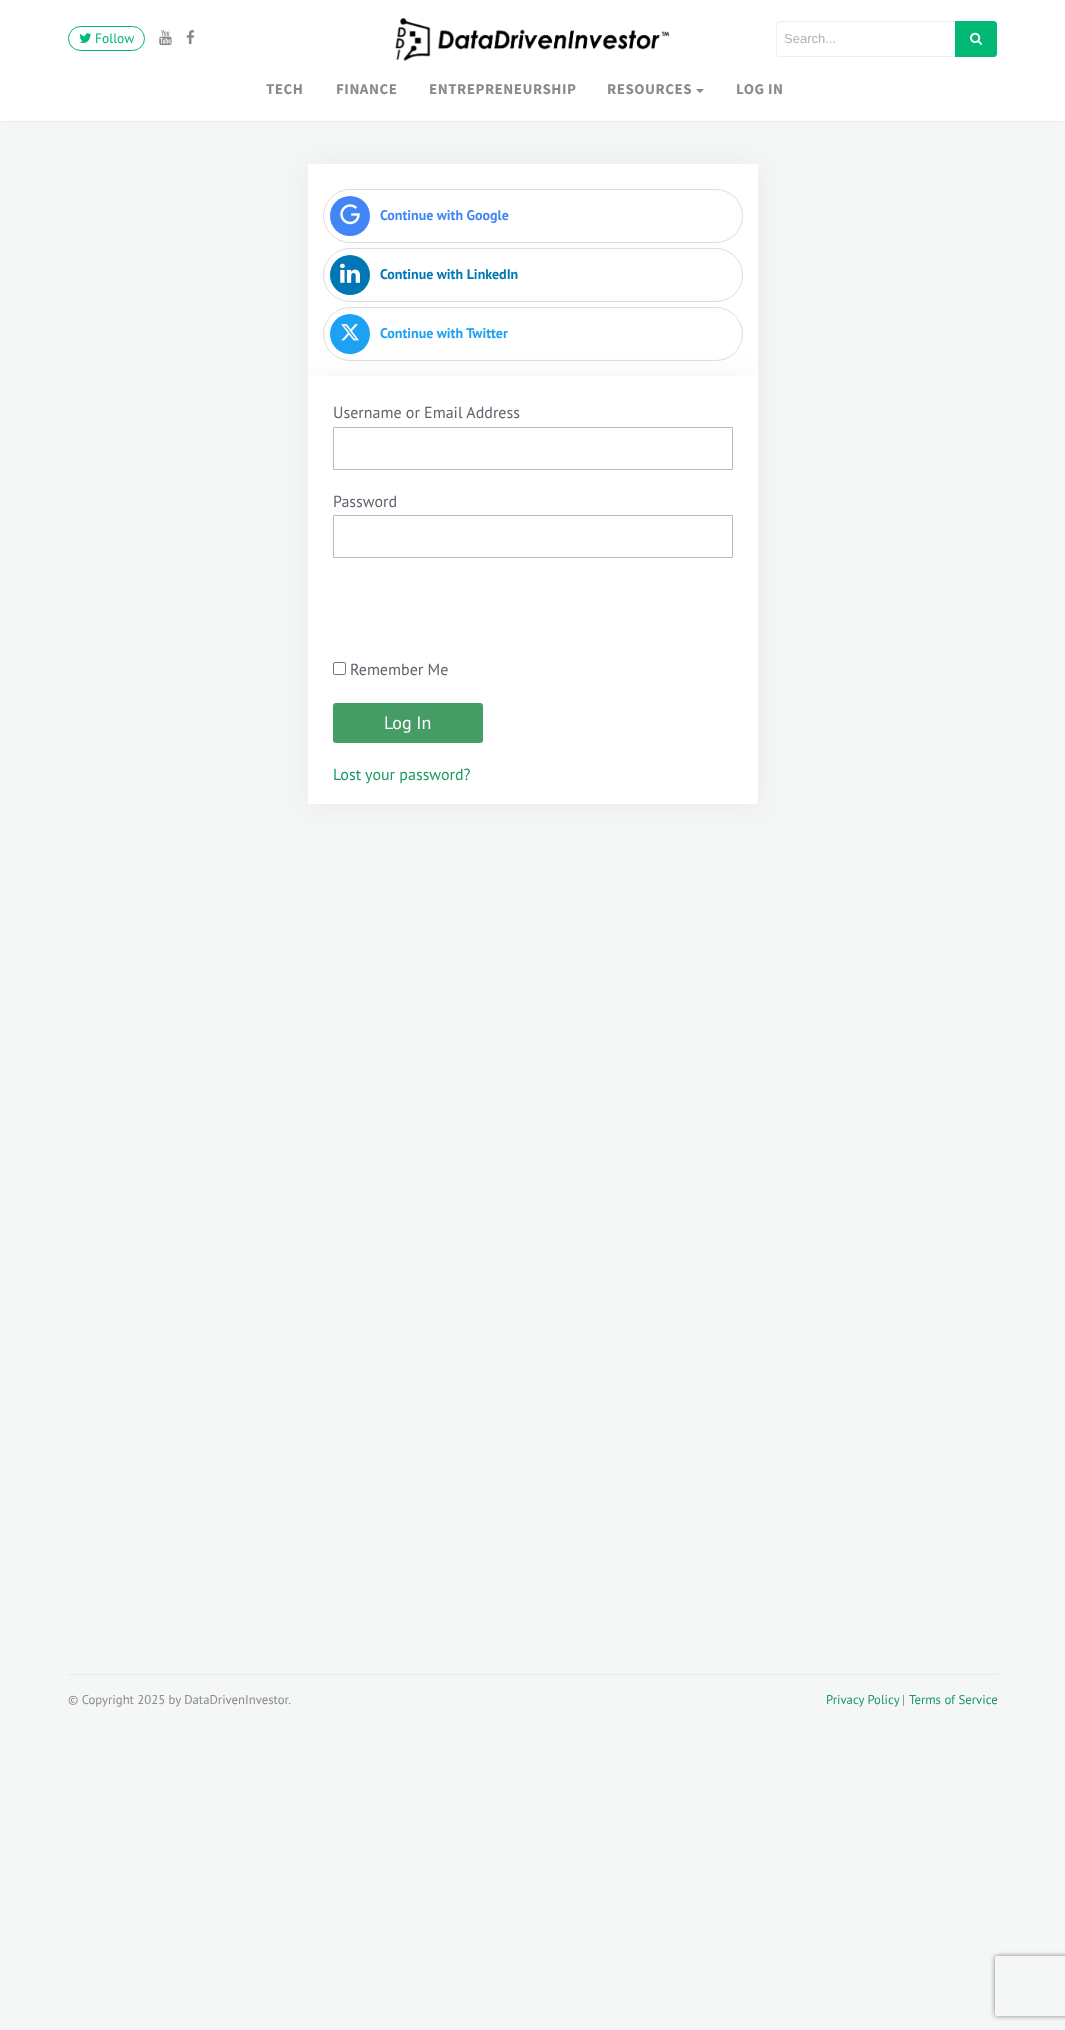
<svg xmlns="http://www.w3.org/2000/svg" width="1065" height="2030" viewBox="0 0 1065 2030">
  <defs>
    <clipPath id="clip1"><path d="M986 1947H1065V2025H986ZM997 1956H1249C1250 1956 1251 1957 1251 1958V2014C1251 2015 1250 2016 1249 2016H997C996 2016 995 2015 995 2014V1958C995 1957 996 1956 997 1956Z" clip-rule="evenodd"/></clipPath>
  </defs>
  <rect width="100%" height="100%" fill="#f5f6f6"/>
  <path d="M2 4h1061v117H2z" fill="#00000026" filter="blur(1px)"/>
  <path d="M0 0h1065v121H0z" fill="#fff"/>
  <rect x="68.5" y="26.5" width="76" height="24" rx="12" fill="none" stroke="#02b875"/>
  <image x="79" y="33" width="13" height="10" href="img/1.png"/>
  <image x="159" y="30" width="13" height="16" href="img/2.png"/>
  <image x="186" y="30" width="8" height="15" href="img/3.png"/>
  <image x="395" y="18" width="275" height="43" href="img/4.png"/>
  <path d="M779 21.5H955.5V56.5H779C777.5 56.5 776.5 55.5 776.5 54V24C776.5 22.5 777.5 21.5 779 21.5Z" fill="none" stroke="#eee"/>
  <path d="M955 21H994C995.5 21 997 22.5 997 24V54C997 55.5 995.5 57 994 57H955Z" fill="#02b875"/>
  <image x="970" y="32" width="12" height="13" href="img/5.png"/>
  <path d="M696 89H704L700 93Z" fill="#888"/>
  <path d="M309 166h450v212H309z" fill="#0000000d" filter="blur(14px)"/>
  <path d="M308 164h450v212H308z" fill="#fff"/>
  <rect x="323.5" y="189.5" width="419" height="53" rx="26.5" fill="none" stroke="#ddd"/>
  <circle cx="350" cy="216" r="20" fill="#4285f4"/>
  <image x="340" y="204" width="20" height="21" href="img/6.png"/>
  <rect x="323.5" y="248.5" width="419" height="53" rx="26.5" fill="none" stroke="#ddd"/>
  <circle cx="350" cy="275" r="20" fill="#0077b5"/>
  <image x="340" y="263" width="20" height="20" href="img/7.png"/>
  <path d="M309 378h450v428H309z" fill="#0000000d" filter="blur(14px)"/>
  <rect x="323.5" y="307.5" width="419" height="53" rx="26.5" fill="none" stroke="#ddd"/>
  <circle cx="350" cy="334" r="20" fill="#1da1f2"/>
  <image x="341" y="324" width="18" height="17" href="img/8.png"/>
  <path d="M308 376h450v428H308z" fill="#fff"/>
  <path d="M333.5 427.5h399v42H333.5z" fill="none" stroke="#adc1b4"/>
  <path d="M333.5 515.5h399v42H333.5z" fill="none" stroke="#adc1b4"/>
  <rect x="333.5" y="662.5" width="12" height="12" rx="1.5" fill="none" stroke="#767676"/>
  <rect x="333" y="703" width="150" height="40" rx="3" fill="#469c65"/>
  <path d="M68 1674h930v1H68z" fill="#e9eaea"/>
  <g clip-path="url(#clip1)">
    <rect x="995" y="1956" width="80" height="60" rx="2" fill="#808080" filter="blur(2.5px)"/>
  </g>
  <text x="95" y="43" font-family="PT Sans" font-size="13.5" fill="#02b875">Follow</text>
  <text x="784" y="43" font-family="Liberation Sans" font-size="13" fill="#b2b2b2">Search...</text>
  <g font-family="Source Sans Pro" font-size="15" font-weight="bold" letter-spacing="0.5" fill="#898a8a">
    <text x="266" y="94">TECH</text>
    <text x="336" y="94">FINANCE</text>
    <text x="429" y="94">ENTREPRENEURSHIP</text>
    <text x="607" y="94">RESOURCES</text>
    <text x="736" y="94">LOG IN</text>
  </g>
  <text x="380" y="220" font-family="PT Sans" font-size="14" font-weight="bold" fill="#4285f4">Continue with Google</text>
  <text x="380" y="279" font-family="PT Sans" font-size="14" font-weight="bold" fill="#0077b5">Continue with LinkedIn</text>
  <text x="380" y="338" font-family="PT Sans" font-size="14" font-weight="bold" fill="#1da1f2">Continue with Twitter</text>
  <g font-family="PT Sans" font-size="16" fill="#5f636d">
    <text x="333" y="418">Username or Email Address</text>
    <text x="333" y="507">Password</text>
    <text x="350" y="675">Remember Me</text>
  </g>
  <text x="384" y="729" font-family="PT Sans" font-size="18" fill="#fff">Log In</text>
  <text x="333" y="780" font-family="PT Sans" font-size="16" fill="#1c9963">Lost your password?</text>
  <text x="68" y="1704" font-family="PT Sans" font-size="12.75" fill="#898a8a">© Copyright 2025 by DataDrivenInvestor.</text>
  <text x="826" y="1704" font-family="PT Sans" font-size="12.75" fill="#1c9963">Privacy Policy</text>
  <text x="902" y="1704" font-family="PT Sans" font-size="12.75" fill="#898a8a">|</text>
  <text x="909" y="1704" font-family="PT Sans" font-size="12.75" fill="#1c9963">Terms of Service</text>
</svg>
